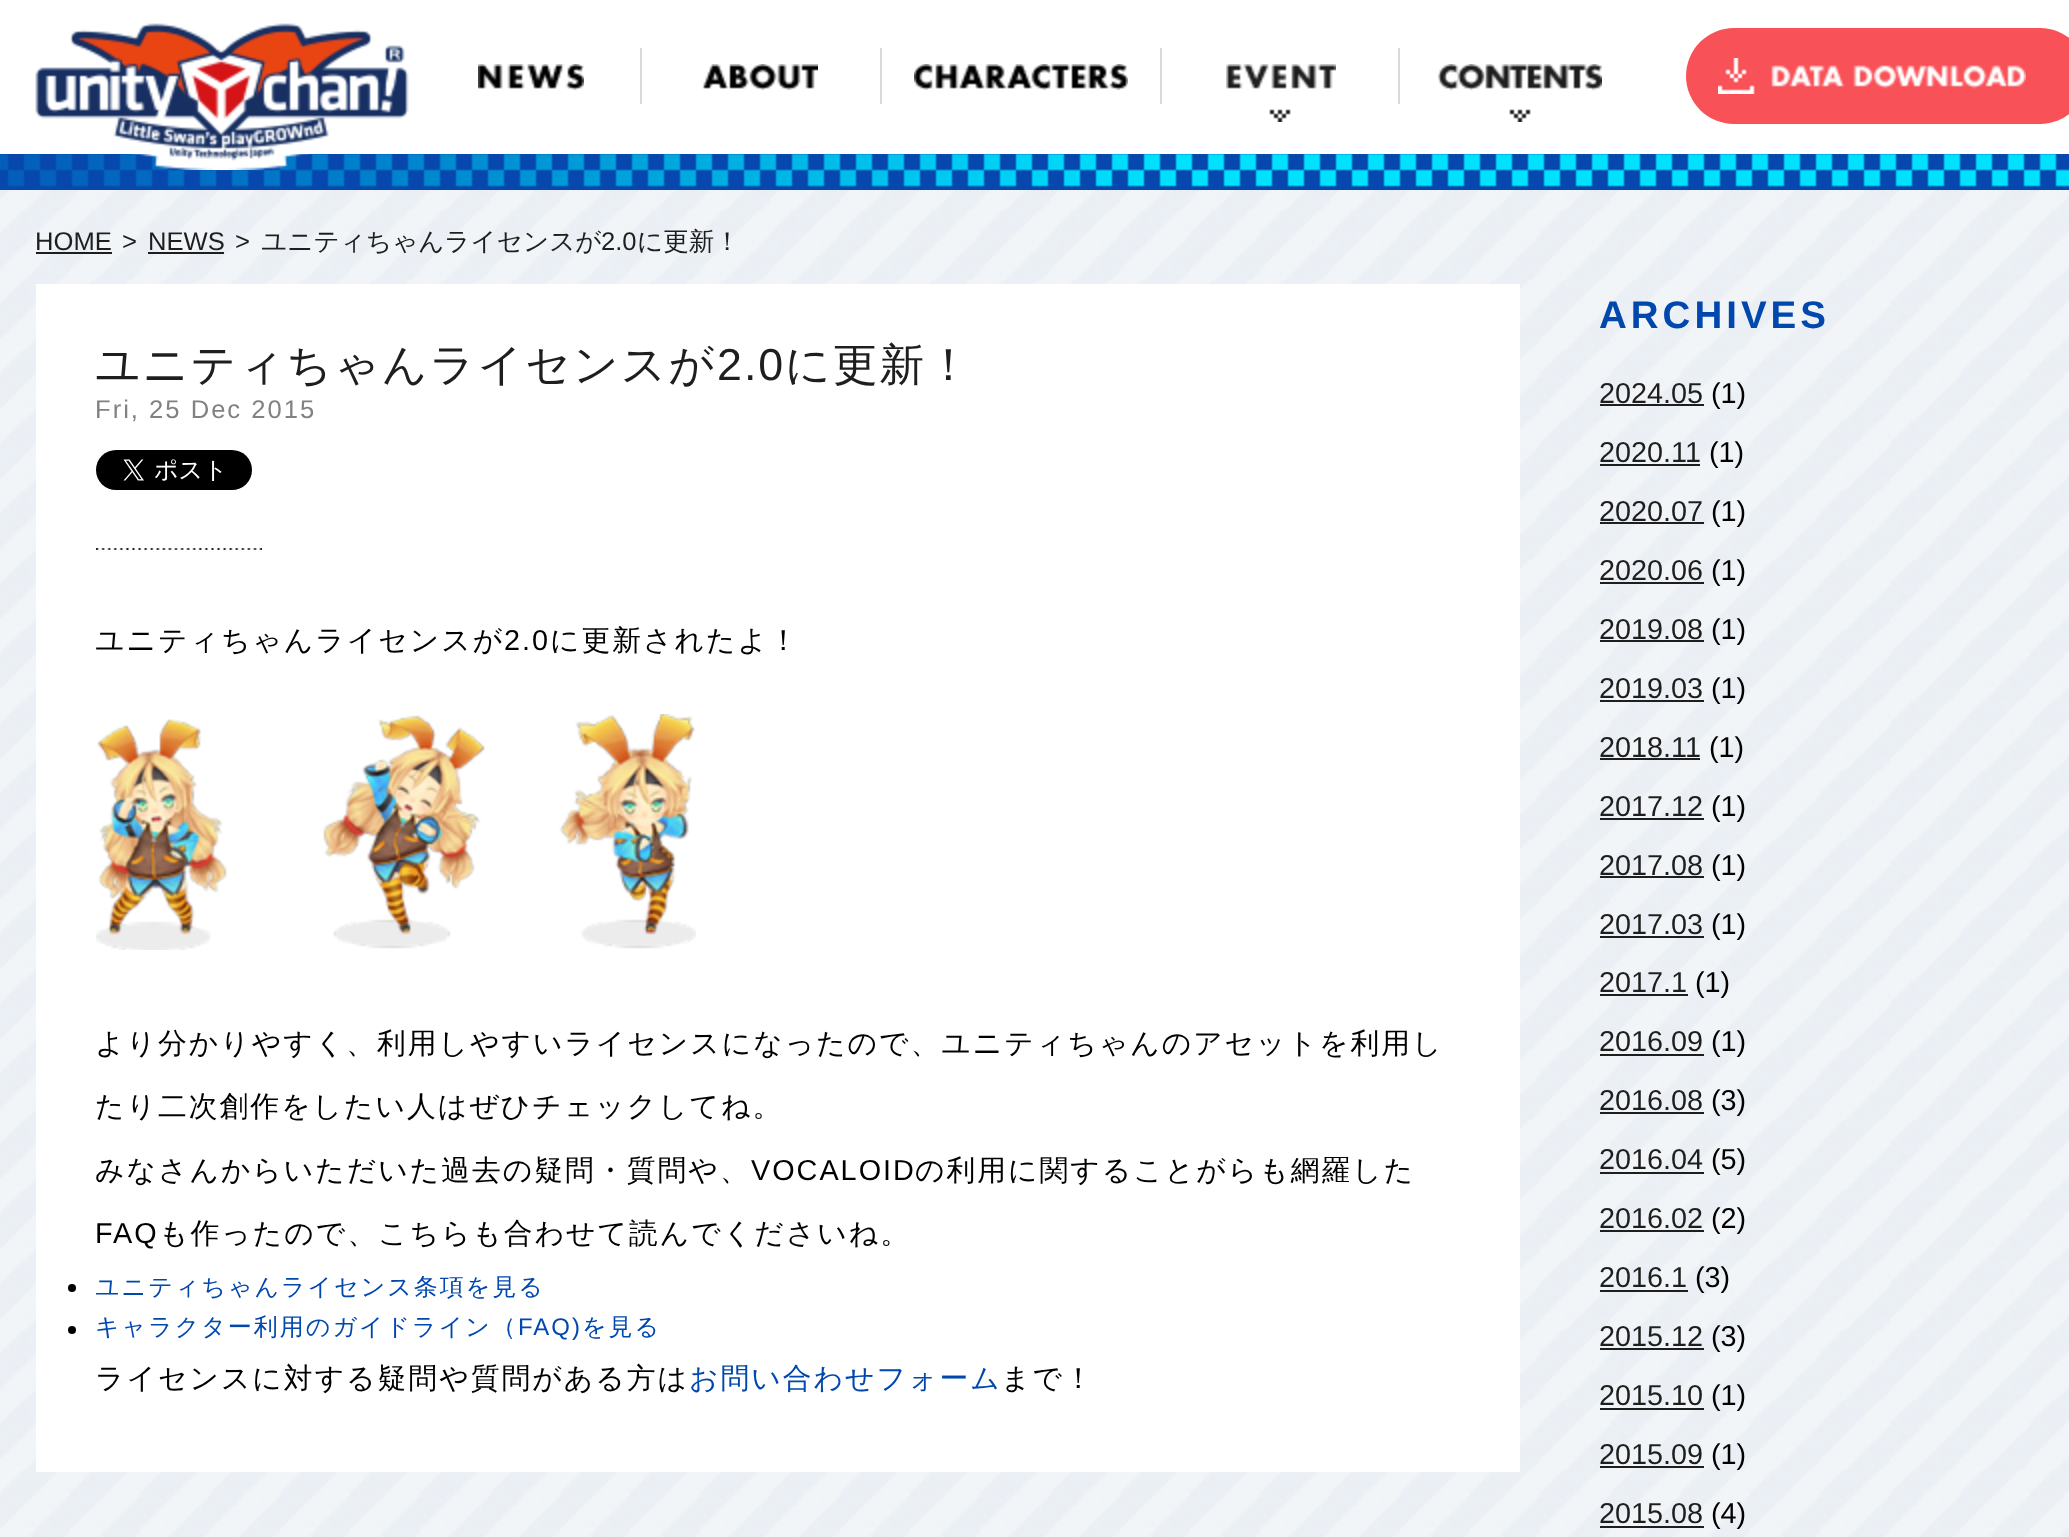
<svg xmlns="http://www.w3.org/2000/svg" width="2069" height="1537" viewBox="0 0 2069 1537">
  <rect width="100%" height="100%" fill="#fff"/>
  <image x="0" y="190" width="2069" height="1347" href="img/1.png"/>
  <path d="M0 154h2069v36H0z" fill="#0748ae"/>
  <image x="0" y="154" width="2069" height="33" href="img/2.png"/>
  <image x="35" y="23" width="374" height="147" href="img/3.png"/>
  <image x="478" y="64" width="106" height="26" href="img/4.png"/>
  <path d="M640 48h2v56H640z" fill="#d9d9d9"/>
  <image x="702" y="64" width="116" height="26" href="img/5.png"/>
  <path d="M880 48h2v56H880z" fill="#d9d9d9"/>
  <image x="914" y="64" width="214" height="26" href="img/6.png"/>
  <path d="M1160 48h2v56H1160z" fill="#d9d9d9"/>
  <image x="1226" y="64" width="110" height="58" href="img/7.png"/>
  <path d="M1398 48h2v56H1398z" fill="#d9d9d9"/>
  <image x="1438" y="64" width="164" height="58" href="img/8.png"/>
  <rect x="1686" y="28" width="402" height="96" rx="48" fill="#f95158"/>
  <image x="1718" y="58" width="308" height="36" href="img/9.png"/>
  <path d="M36 252h76v2H36z" fill="#1e1e1e"/>
  <path d="M148 252h76v2H148z" fill="#1e1e1e"/>
  <path d="M36 284h1484v1188H36z" fill="#fff"/>
  <image x="96" y="548" width="166" height="2" href="img/10.png"/>
  <image x="96" y="450" width="156" height="40" href="img/11.png"/>
  <image x="96" y="714" width="600" height="236" href="img/12.png"/>
  <circle cx="72" cy="1288" r="4" fill="#000"/>
  <circle cx="72" cy="1330" r="4" fill="#000"/>
  <path d="M1600 404h104v2H1600z" fill="#1e1e1e"/>
  <path d="M1600 464h100v2H1600z" fill="#1e1e1e"/>
  <path d="M1600 522h104v2H1600z" fill="#1e1e1e"/>
  <path d="M1600 582h104v2H1600z" fill="#1e1e1e"/>
  <path d="M1600 640h104v2H1600z" fill="#1e1e1e"/>
  <path d="M1600 700h104v2H1600z" fill="#1e1e1e"/>
  <path d="M1600 758h100v2H1600z" fill="#1e1e1e"/>
  <path d="M1600 818h104v2H1600z" fill="#1e1e1e"/>
  <path d="M1600 876h104v2H1600z" fill="#1e1e1e"/>
  <path d="M1600 936h104v2H1600z" fill="#1e1e1e"/>
  <path d="M1600 994h88v2H1600z" fill="#1e1e1e"/>
  <path d="M1600 1054h104v2H1600z" fill="#1e1e1e"/>
  <path d="M1600 1112h104v2H1600z" fill="#1e1e1e"/>
  <path d="M1600 1172h104v2H1600z" fill="#1e1e1e"/>
  <path d="M1600 1230h104v2H1600z" fill="#1e1e1e"/>
  <path d="M1600 1290h88v2H1600z" fill="#1e1e1e"/>
  <path d="M1600 1348h104v2H1600z" fill="#1e1e1e"/>
  <path d="M1600 1408h104v2H1600z" fill="#1e1e1e"/>
  <path d="M1600 1466h104v2H1600z" fill="#1e1e1e"/>
  <path d="M1600 1526h104v2H1600z" fill="#1e1e1e"/>
  <g font-family="Liberation Sans" font-size="25.6" fill="#1e1e1e">
    <text x="35" y="250">HOME</text>
    <text x="122" y="250">&gt;</text>
    <text x="148" y="250">NEWS</text>
    <text x="235" y="250">&gt;</text>
  </g>
  <text x="261" y="250" font-family="WenQuanYi Zen Hei" font-size="25.6" font-weight="500" fill="#1e1e1e">ユニティちゃんライセンスが</text>
  <text x="601" y="250" font-family="Liberation Sans" font-size="25.6" fill="#1e1e1e">2.0</text>
  <text x="637" y="250" font-family="WenQuanYi Zen Hei" font-size="25.6" font-weight="500" fill="#1e1e1e">に更新！</text>
  <text x="95" y="380" font-family="WenQuanYi Zen Hei" font-size="44.75" font-weight="500" letter-spacing="2" fill="#1e1e1e">ユニティちゃんライセンスが</text>
  <text x="717" y="380" font-family="Liberation Sans" font-size="44.75" letter-spacing="2" fill="#1e1e1e">2.0</text>
  <text x="785" y="380" font-family="WenQuanYi Zen Hei" font-size="44.75" font-weight="500" letter-spacing="2" fill="#1e1e1e">に更新！</text>
  <text x="95" y="418" font-family="Liberation Sans" font-size="25.6" letter-spacing="2" fill="#818181">Fri, 25 Dec 2015</text>
  <text x="95" y="650" font-family="WenQuanYi Zen Hei" font-size="28.8" font-weight="500" letter-spacing="2" fill="#000">ユニティちゃんライセンスが</text>
  <text x="504" y="650" font-family="Liberation Sans" font-size="28.8" letter-spacing="2" fill="#000">2.0</text>
  <g font-family="WenQuanYi Zen Hei" font-size="28.8" font-weight="500" letter-spacing="2" fill="#000">
    <text x="550" y="650">に更新されたよ！</text>
    <text x="95" y="1053">より分かりやすく、利用しやすいライセンスになったので、ユニティちゃんのアセットを利用し</text>
    <text x="95" y="1116">たり二次創作をしたい人はぜひチェックしてね。</text>
    <text x="95" y="1180">みなさんからいただいた過去の疑問・質問や、</text>
  </g>
  <text x="751" y="1180" font-family="Liberation Sans" font-size="28.8" letter-spacing="2" fill="#000">VOCALOID</text>
  <text x="915" y="1180" font-family="WenQuanYi Zen Hei" font-size="28.8" font-weight="500" letter-spacing="2" fill="#000">の利用に関することがらも網羅した</text>
  <text x="95" y="1243" font-family="Liberation Sans" font-size="28.8" letter-spacing="2" fill="#000">FAQ</text>
  <text x="159" y="1243" font-family="WenQuanYi Zen Hei" font-size="28.8" font-weight="500" letter-spacing="2" fill="#000">も作ったので、こちらも合わせて読んでくださいね。</text>
  <g font-family="WenQuanYi Zen Hei" font-size="24" font-weight="500" letter-spacing="2" fill="#0048ae">
    <text x="95" y="1295">ユニティちゃんライセンス条項を見る</text>
    <text x="95" y="1335">キャラクター利用のガイドライン（</text>
  </g>
  <text x="518" y="1335" font-family="Liberation Sans" font-size="24" letter-spacing="2" fill="#0048ae">FAQ)</text>
  <text x="582" y="1335" font-family="WenQuanYi Zen Hei" font-size="24" font-weight="500" letter-spacing="2" fill="#0048ae">を見る</text>
  <text x="95" y="1388" font-family="WenQuanYi Zen Hei" font-size="28.8" font-weight="500" letter-spacing="2" fill="#000">ライセンスに対する疑問や質問がある方は</text>
  <text x="689" y="1388" font-family="WenQuanYi Zen Hei" font-size="28.8" font-weight="500" letter-spacing="2" fill="#0048ae">お問い合わせフォーム</text>
  <text x="1001" y="1388" font-family="WenQuanYi Zen Hei" font-size="28.8" font-weight="500" letter-spacing="2" fill="#000">まで！</text>
  <text x="1599" y="328" font-family="Liberation Sans" font-size="38.5" font-weight="bold" letter-spacing="4" fill="#0048ae">ARCHIVES</text>
  <text x="1599" y="403" font-family="Liberation Sans" font-size="28.8" fill="#1e1e1e">2024.05</text>
  <text x="1711" y="403" font-family="Liberation Sans" font-size="28.8" fill="#000">(1)</text>
  <text x="1599" y="462" font-family="Liberation Sans" font-size="28.8" fill="#1e1e1e">2020.11</text>
  <text x="1709" y="462" font-family="Liberation Sans" font-size="28.8" fill="#000">(1)</text>
  <text x="1599" y="521" font-family="Liberation Sans" font-size="28.8" fill="#1e1e1e">2020.07</text>
  <text x="1711" y="521" font-family="Liberation Sans" font-size="28.8" fill="#000">(1)</text>
  <text x="1599" y="580" font-family="Liberation Sans" font-size="28.8" fill="#1e1e1e">2020.06</text>
  <text x="1711" y="580" font-family="Liberation Sans" font-size="28.8" fill="#000">(1)</text>
  <text x="1599" y="639" font-family="Liberation Sans" font-size="28.8" fill="#1e1e1e">2019.08</text>
  <text x="1711" y="639" font-family="Liberation Sans" font-size="28.8" fill="#000">(1)</text>
  <text x="1599" y="698" font-family="Liberation Sans" font-size="28.8" fill="#1e1e1e">2019.03</text>
  <text x="1711" y="698" font-family="Liberation Sans" font-size="28.8" fill="#000">(1)</text>
  <text x="1599" y="757" font-family="Liberation Sans" font-size="28.8" fill="#1e1e1e">2018.11</text>
  <text x="1709" y="757" font-family="Liberation Sans" font-size="28.8" fill="#000">(1)</text>
  <text x="1599" y="816" font-family="Liberation Sans" font-size="28.8" fill="#1e1e1e">2017.12</text>
  <text x="1711" y="816" font-family="Liberation Sans" font-size="28.8" fill="#000">(1)</text>
  <text x="1599" y="875" font-family="Liberation Sans" font-size="28.8" fill="#1e1e1e">2017.08</text>
  <text x="1711" y="875" font-family="Liberation Sans" font-size="28.8" fill="#000">(1)</text>
  <text x="1599" y="934" font-family="Liberation Sans" font-size="28.8" fill="#1e1e1e">2017.03</text>
  <text x="1711" y="934" font-family="Liberation Sans" font-size="28.8" fill="#000">(1)</text>
  <text x="1599" y="992" font-family="Liberation Sans" font-size="28.8" fill="#1e1e1e">2017.1</text>
  <text x="1695" y="992" font-family="Liberation Sans" font-size="28.8" fill="#000">(1)</text>
  <text x="1599" y="1051" font-family="Liberation Sans" font-size="28.8" fill="#1e1e1e">2016.09</text>
  <text x="1711" y="1051" font-family="Liberation Sans" font-size="28.8" fill="#000">(1)</text>
  <text x="1599" y="1110" font-family="Liberation Sans" font-size="28.8" fill="#1e1e1e">2016.08</text>
  <text x="1711" y="1110" font-family="Liberation Sans" font-size="28.8" fill="#000">(3)</text>
  <text x="1599" y="1169" font-family="Liberation Sans" font-size="28.8" fill="#1e1e1e">2016.04</text>
  <text x="1711" y="1169" font-family="Liberation Sans" font-size="28.8" fill="#000">(5)</text>
  <text x="1599" y="1228" font-family="Liberation Sans" font-size="28.8" fill="#1e1e1e">2016.02</text>
  <text x="1711" y="1228" font-family="Liberation Sans" font-size="28.8" fill="#000">(2)</text>
  <text x="1599" y="1287" font-family="Liberation Sans" font-size="28.8" fill="#1e1e1e">2016.1</text>
  <text x="1695" y="1287" font-family="Liberation Sans" font-size="28.8" fill="#000">(3)</text>
  <text x="1599" y="1346" font-family="Liberation Sans" font-size="28.8" fill="#1e1e1e">2015.12</text>
  <text x="1711" y="1346" font-family="Liberation Sans" font-size="28.8" fill="#000">(3)</text>
  <text x="1599" y="1405" font-family="Liberation Sans" font-size="28.8" fill="#1e1e1e">2015.10</text>
  <text x="1711" y="1405" font-family="Liberation Sans" font-size="28.8" fill="#000">(1)</text>
  <text x="1599" y="1464" font-family="Liberation Sans" font-size="28.8" fill="#1e1e1e">2015.09</text>
  <text x="1711" y="1464" font-family="Liberation Sans" font-size="28.8" fill="#000">(1)</text>
  <text x="1599" y="1523" font-family="Liberation Sans" font-size="28.8" fill="#1e1e1e">2015.08</text>
  <text x="1711" y="1523" font-family="Liberation Sans" font-size="28.8" fill="#000">(4)</text>
</svg>
